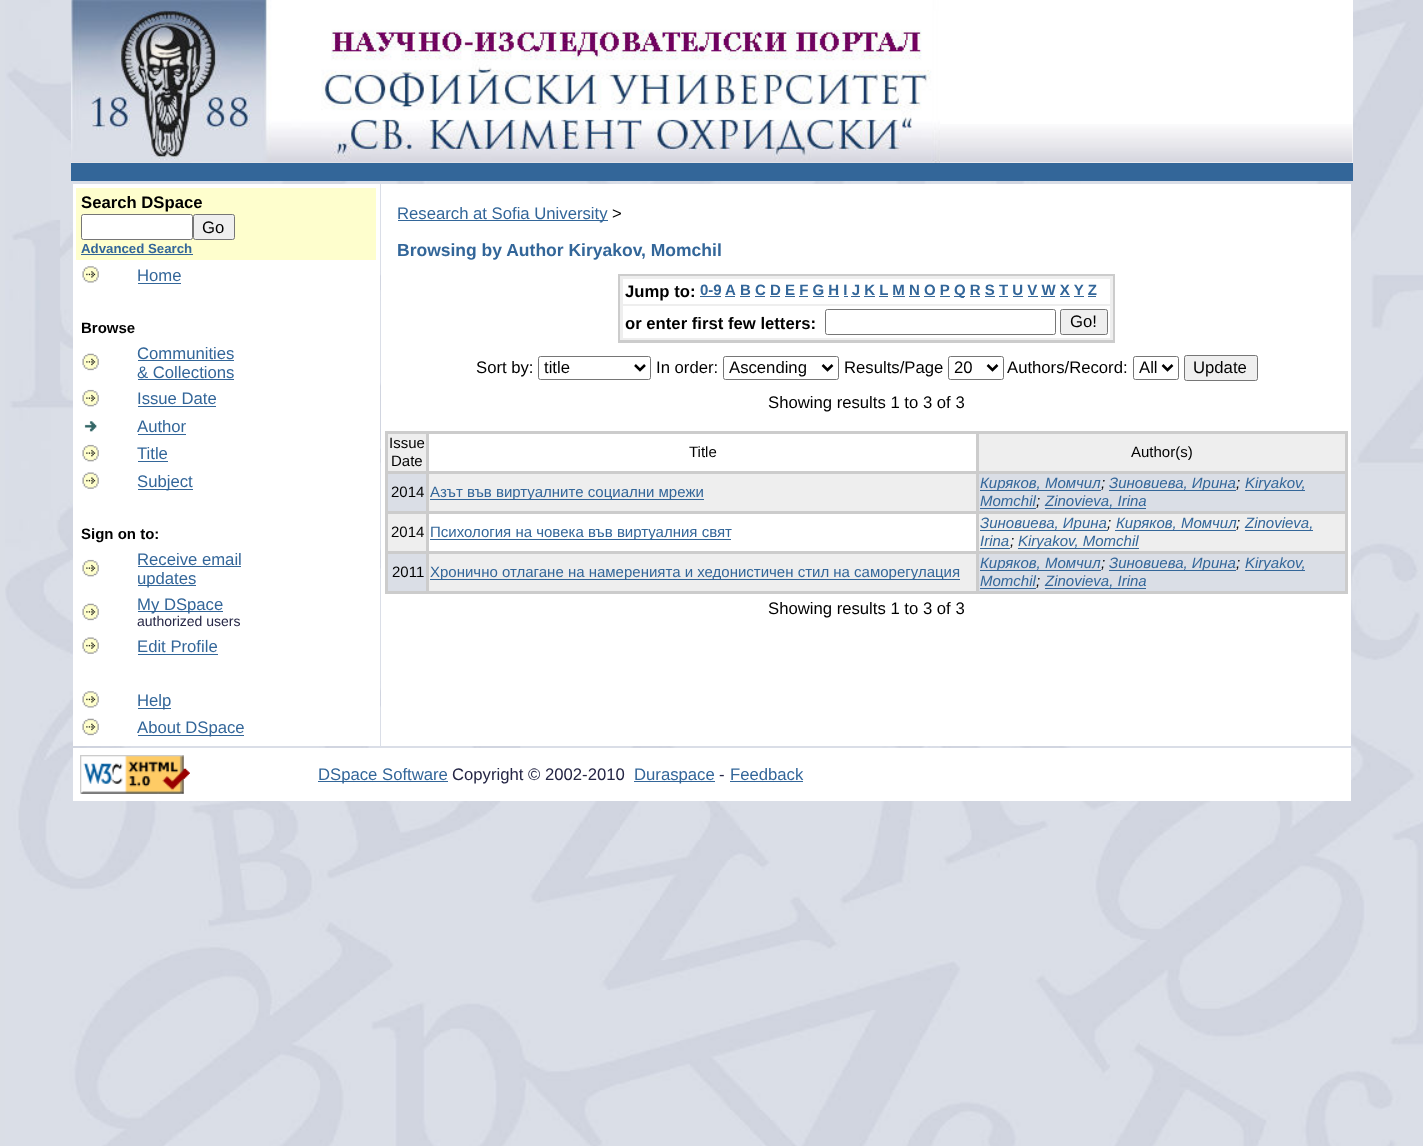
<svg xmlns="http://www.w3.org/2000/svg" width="1423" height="1146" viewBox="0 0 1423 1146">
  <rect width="100%" height="100%" fill="#dadee6"/>
  <image x="5" y="0" width="1418" height="1146" href="img/1.png"/>
  <path d="M71 0h1282v163H71z" fill="#fff"/>
  <image x="71" y="124" width="1282" height="39" href="img/2.png"/>
  <image x="71" y="0" width="869" height="163" href="img/3.png"/>
  <path d="M71 163h1282v18H71z" fill="#369"/>
  <path d="M73 184h307v562H73z" fill="#fff"/>
  <path d="M76 188h300v72H76z" fill="#fefecd"/>
  <rect x="81.5" y="214.5" width="111" height="25" rx="2" fill="#fff" stroke="#767676"/>
  <rect x="193.5" y="214.5" width="41" height="25" rx="2" fill="#efefef" stroke="#767676"/>
  <path d="M81 254h112v1H81z" fill="#369"/>
  <image x="82" y="266" width="17" height="17" href="img/4.png"/>
  <path d="M138 283h43v1H138z" fill="#369"/>
  <image x="82" y="353" width="17" height="18" href="img/5.png"/>
  <path d="M138 360h96v1H138z" fill="#369"/>
  <path d="M138 379h96v1H138z" fill="#369"/>
  <image x="82" y="389" width="17" height="18" href="img/6.png"/>
  <path d="M138 406h78v1H138z" fill="#369"/>
  <image x="84" y="421" width="13" height="11" href="img/7.png"/>
  <path d="M138 434h48v1H138z" fill="#369"/>
  <image x="82" y="444" width="17" height="18" href="img/6.png"/>
  <path d="M138 461h30v1H138z" fill="#369"/>
  <image x="82" y="472" width="17" height="17" href="img/8.png"/>
  <path d="M138 489h55v1H138z" fill="#369"/>
  <image x="82" y="559" width="17" height="18" href="img/6.png"/>
  <path d="M138 566h103v1H138z" fill="#369"/>
  <path d="M138 585h58v1H138z" fill="#369"/>
  <image x="82" y="603" width="17" height="18" href="img/5.png"/>
  <path d="M138 611h85v1H138z" fill="#369"/>
  <image x="82" y="637" width="17" height="17" href="img/8.png"/>
  <path d="M138 654h80v1H138z" fill="#369"/>
  <image x="82" y="691" width="17" height="17" href="img/4.png"/>
  <path d="M138 708h33v1H138z" fill="#369"/>
  <image x="82" y="718" width="17" height="18" href="img/5.png"/>
  <path d="M138 735h106v1H138z" fill="#369"/>
  <path d="M381 184h970v562H381z" fill="#fff"/>
  <path d="M398 220h210v1H398z" fill="#369"/>
  <path d="M618 274h497v69H618z" fill="#ccc"/>
  <path d="M620 276h493v64H620z" fill="#eee"/>
  <path d="M623 279h487v25H623z" fill="#fff"/>
  <path d="M700 296h21v1H700z" fill="#369"/>
  <path d="M725 296h10v1H725z" fill="#369"/>
  <path d="M740 296h10v1H740z" fill="#369"/>
  <path d="M954 296h11v1H954z" fill="#369"/>
  <path d="M755 296h10v1H755z" fill="#369"/>
  <path d="M770 296h10v1H770z" fill="#369"/>
  <path d="M785 296h10v1H785z" fill="#369"/>
  <path d="M799 296h9v1H799z" fill="#369"/>
  <path d="M813 296h11v1H813z" fill="#369"/>
  <path d="M828 296h11v1H828z" fill="#369"/>
  <path d="M844 296h4v1H844z" fill="#369"/>
  <path d="M851 296h9v1H851z" fill="#369"/>
  <path d="M864 296h11v1H864z" fill="#369"/>
  <path d="M879 296h9v1H879z" fill="#369"/>
  <path d="M893 296h12v1H893z" fill="#369"/>
  <path d="M909 296h11v1H909z" fill="#369"/>
  <path d="M924 296h11v1H924z" fill="#369"/>
  <path d="M940 296h10v1H940z" fill="#369"/>
  <path d="M970 296h10v1H970z" fill="#369"/>
  <path d="M985 296h10v1H985z" fill="#369"/>
  <path d="M999 296h9v1H999z" fill="#369"/>
  <path d="M1013 296h10v1H1013z" fill="#369"/>
  <path d="M1028 296h10v1H1028z" fill="#369"/>
  <path d="M1041 296h14v1H1041z" fill="#369"/>
  <path d="M1060 296h10v1H1060z" fill="#369"/>
  <path d="M1074 296h10v1H1074z" fill="#369"/>
  <path d="M1088 296h8v1H1088z" fill="#369"/>
  <path d="M623 306h487v32H623z" fill="#fff"/>
  <rect x="825.5" y="309.5" width="230" height="25" rx="2" fill="none" stroke="#767676"/>
  <rect x="1060.5" y="309.5" width="47" height="25" rx="2" fill="#efefef" stroke="#767676"/>
  <rect x="538.5" y="356.5" width="112" height="23" rx="2" fill="none" stroke="#767676"/>
  <path d="M635 365L640 370L645 365" fill="none" stroke="#000" stroke-width="2.5"/>
  <rect x="723.5" y="356.5" width="115" height="23" rx="2" fill="none" stroke="#767676"/>
  <path d="M822.5 365L827.5 370L832.5 365" fill="none" stroke="#000" stroke-width="2.5"/>
  <rect x="948.5" y="356.5" width="55" height="23" rx="2" fill="none" stroke="#767676"/>
  <path d="M987.5 365L992.5 370L997.5 365" fill="none" stroke="#000" stroke-width="2.5"/>
  <rect x="1133.5" y="356.5" width="45" height="23" rx="2" fill="none" stroke="#767676"/>
  <path d="M1162.5 365L1167.5 370L1172.5 365" fill="none" stroke="#000" stroke-width="2.5"/>
  <rect x="1184.5" y="355.5" width="73" height="25" rx="2" fill="#efefef" stroke="#767676"/>
  <path d="M385 431h963v163H385z" fill="#ccc"/>
  <path d="M388 434h38v37H388z" fill="#eee"/>
  <path d="M429 434h547v37H429z" fill="#fff"/>
  <path d="M979 434h366v37H979z" fill="#eee"/>
  <path d="M388 474h38v37H388z" fill="#dadee6"/>
  <path d="M429 474h547v37H429z" fill="#eee"/>
  <path d="M430 499h274v1H430z" fill="#369"/>
  <path d="M979 474h366v37H979z" fill="#dadee6"/>
  <path d="M980 490h121v1H980z" fill="#369"/>
  <path d="M1109 490h127v1H1109z" fill="#369"/>
  <path d="M1245 490h60v1H1245z" fill="#369"/>
  <path d="M980 508h56v1H980z" fill="#369"/>
  <path d="M1045 508h101v1H1045z" fill="#369"/>
  <path d="M388 514h38v37H388z" fill="#eee"/>
  <path d="M429 514h547v37H429z" fill="#fff"/>
  <path d="M430 539h301v1H430z" fill="#369"/>
  <path d="M979 514h366v37H979z" fill="#eee"/>
  <path d="M980 530h128v1H980z" fill="#369"/>
  <path d="M1115 530h121v1H1115z" fill="#369"/>
  <path d="M1245 530h68v1H1245z" fill="#369"/>
  <path d="M980 548h30v1H980z" fill="#369"/>
  <path d="M1018 548h121v1H1018z" fill="#369"/>
  <path d="M388 554h38v37H388z" fill="#dadee6"/>
  <path d="M429 554h547v37H429z" fill="#eee"/>
  <path d="M430 579h530v1H430z" fill="#369"/>
  <path d="M979 554h366v37H979z" fill="#dadee6"/>
  <path d="M980 570h121v1H980z" fill="#369"/>
  <path d="M1109 570h127v1H1109z" fill="#369"/>
  <path d="M1245 570h60v1H1245z" fill="#369"/>
  <path d="M980 588h56v1H980z" fill="#369"/>
  <path d="M1045 588h101v1H1045z" fill="#369"/>
  <path d="M73 748h1278v53H73z" fill="#fff"/>
  <image x="80" y="755" width="110" height="39" href="img/9.png"/>
  <path d="M318 781h130v1H318z" fill="#369"/>
  <path d="M634 781h81v1H634z" fill="#369"/>
  <path d="M730 781h73v1H730z" fill="#369"/>
  <text x="81" y="208" font-family="Liberation Sans" font-size="16.7" font-weight="bold" fill="#000">Search DSpace</text>
  <text x="202" y="233" font-family="Liberation Sans" font-size="16.7" fill="#000">Go</text>
  <text x="81" y="253" font-family="Liberation Sans" font-size="13.25" font-weight="bold" fill="#369">Advanced Search</text>
  <text x="137" y="281" font-family="Liberation Sans" font-size="16.7" fill="#369">Home</text>
  <text x="81" y="333" font-family="Liberation Sans" font-size="15" font-weight="bold" fill="#000">Browse</text>
  <g font-family="Liberation Sans" font-size="16.7" fill="#369">
    <text x="137" y="359">Communities</text>
    <text x="137" y="378">&amp; Collections</text>
    <text x="137" y="404">Issue Date</text>
    <text x="137" y="432">Author</text>
    <text x="137" y="459">Title</text>
    <text x="137" y="487">Subject</text>
  </g>
  <text x="81" y="539" font-family="Liberation Sans" font-size="15" font-weight="bold" fill="#000">Sign on to:</text>
  <g font-family="Liberation Sans" font-size="16.7" fill="#369">
    <text x="137" y="565">Receive email</text>
    <text x="137" y="584">updates</text>
    <text x="137" y="610">My DSpace</text>
  </g>
  <text x="137" y="626" font-family="Liberation Sans" font-size="14" fill="#252645">authorized users</text>
  <g font-family="Liberation Sans" font-size="16.7" fill="#369">
    <text x="137" y="652">Edit Profile</text>
    <text x="137" y="706">Help</text>
    <text x="137" y="733">About DSpace</text>
    <text x="397" y="219">Research at Sofia University</text>
  </g>
  <text x="612" y="219" font-family="Liberation Sans" font-size="16.7" fill="#000">&gt;</text>
  <text x="397" y="256" font-family="Liberation Sans" font-size="17.5" font-weight="bold" fill="#369">Browsing by Author Kiryakov, Momchil</text>
  <text x="625" y="297" font-family="Liberation Sans" font-size="16.7" font-weight="bold" fill="#000">Jump to:</text>
  <g font-family="Liberation Sans" font-size="15" font-weight="bold" fill="#369">
    <text x="700" y="295">0-9</text>
    <text x="725" y="295">A</text>
    <text x="740" y="295">B C D E F G H I J K L M N O P</text>
    <text x="954" y="295">Q R S T U V W X Y Z</text>
  </g>
  <text x="625" y="329" font-family="Liberation Sans" font-size="16.7" font-weight="bold" fill="#000">or enter first few letters:</text>
  <g font-family="Liberation Sans" font-size="16.7" fill="#000">
    <text x="1070" y="327">Go!</text>
    <text x="476" y="373">Sort by:</text>
    <text x="544" y="373">title</text>
    <text x="656" y="373">In order:</text>
    <text x="729" y="373">Ascending</text>
    <text x="844" y="373">Results/Page</text>
    <text x="954" y="373">20</text>
    <text x="1007" y="373">Authors/Record:</text>
    <text x="1139" y="373">All</text>
    <text x="1193" y="373">Update</text>
    <text x="768" y="408">Showing results 1 to 3 of 3</text>
  </g>
  <g font-family="Liberation Sans" font-size="15" fill="#000">
    <text x="389" y="448">Issue</text>
    <text x="391" y="466">Date</text>
    <text x="689" y="457">Title</text>
    <text x="1131" y="457">Author(s)</text>
    <text x="391" y="497">2014</text>
  </g>
  <text x="430" y="497" font-family="Liberation Sans" font-size="15" fill="#369">Азът във виртуалните социални мрежи</text>
  <text x="980" y="488" font-family="Liberation Sans" font-size="15" font-style="italic" fill="#369">Киряков, Момчил</text>
  <text x="1101" y="488" font-family="Liberation Sans" font-size="15" font-style="italic" fill="#000">;</text>
  <text x="1109" y="488" font-family="Liberation Sans" font-size="15" font-style="italic" fill="#369">Зиновиева, Ирина</text>
  <text x="1236" y="488" font-family="Liberation Sans" font-size="15" font-style="italic" fill="#000">;</text>
  <g font-family="Liberation Sans" font-size="15" font-style="italic" fill="#369">
    <text x="1245" y="488">Kiryakov,</text>
    <text x="980" y="506">Momchil</text>
  </g>
  <text x="1036" y="506" font-family="Liberation Sans" font-size="15" font-style="italic" fill="#000">;</text>
  <text x="1045" y="506" font-family="Liberation Sans" font-size="15" font-style="italic" fill="#369">Zinovieva, Irina</text>
  <text x="391" y="537" font-family="Liberation Sans" font-size="15" fill="#000">2014</text>
  <text x="430" y="537" font-family="Liberation Sans" font-size="15" fill="#369">Психология на човека във виртуалния свят</text>
  <text x="980" y="528" font-family="Liberation Sans" font-size="15" font-style="italic" fill="#369">Зиновиева, Ирина</text>
  <text x="1107" y="528" font-family="Liberation Sans" font-size="15" font-style="italic" fill="#000">;</text>
  <text x="1116" y="528" font-family="Liberation Sans" font-size="15" font-style="italic" fill="#369">Киряков, Момчил</text>
  <text x="1236" y="528" font-family="Liberation Sans" font-size="15" font-style="italic" fill="#000">;</text>
  <g font-family="Liberation Sans" font-size="15" font-style="italic" fill="#369">
    <text x="1245" y="528">Zinovieva,</text>
    <text x="980" y="546">Irina</text>
  </g>
  <text x="1010" y="546" font-family="Liberation Sans" font-size="15" font-style="italic" fill="#000">;</text>
  <text x="1018" y="546" font-family="Liberation Sans" font-size="15" font-style="italic" fill="#369">Kiryakov, Momchil</text>
  <text x="392" y="577" font-family="Liberation Sans" font-size="15" fill="#000">2011</text>
  <text x="430" y="577" font-family="Liberation Sans" font-size="15" fill="#369">Хронично отлагане на намеренията и хедонистичен стил на саморегулация</text>
  <text x="980" y="568" font-family="Liberation Sans" font-size="15" font-style="italic" fill="#369">Киряков, Момчил</text>
  <text x="1101" y="568" font-family="Liberation Sans" font-size="15" font-style="italic" fill="#000">;</text>
  <text x="1109" y="568" font-family="Liberation Sans" font-size="15" font-style="italic" fill="#369">Зиновиева, Ирина</text>
  <text x="1236" y="568" font-family="Liberation Sans" font-size="15" font-style="italic" fill="#000">;</text>
  <g font-family="Liberation Sans" font-size="15" font-style="italic" fill="#369">
    <text x="1245" y="568">Kiryakov,</text>
    <text x="980" y="586">Momchil</text>
  </g>
  <text x="1036" y="586" font-family="Liberation Sans" font-size="15" font-style="italic" fill="#000">;</text>
  <text x="1045" y="586" font-family="Liberation Sans" font-size="15" font-style="italic" fill="#369">Zinovieva, Irina</text>
  <text x="768" y="614" font-family="Liberation Sans" font-size="16.7" fill="#000">Showing results 1 to 3 of 3</text>
  <text x="318" y="780" font-family="Liberation Sans" font-size="16.7" fill="#369">DSpace Software</text>
  <text x="452" y="780" font-family="Liberation Sans" font-size="16.7" fill="#252645">Copyright © 2002-2010</text>
  <text x="634" y="780" font-family="Liberation Sans" font-size="16.7" fill="#369">Duraspace</text>
  <text x="719" y="780" font-family="Liberation Sans" font-size="16.7" fill="#252645">-</text>
  <text x="730" y="780" font-family="Liberation Sans" font-size="16.7" fill="#369">Feedback</text>
</svg>
